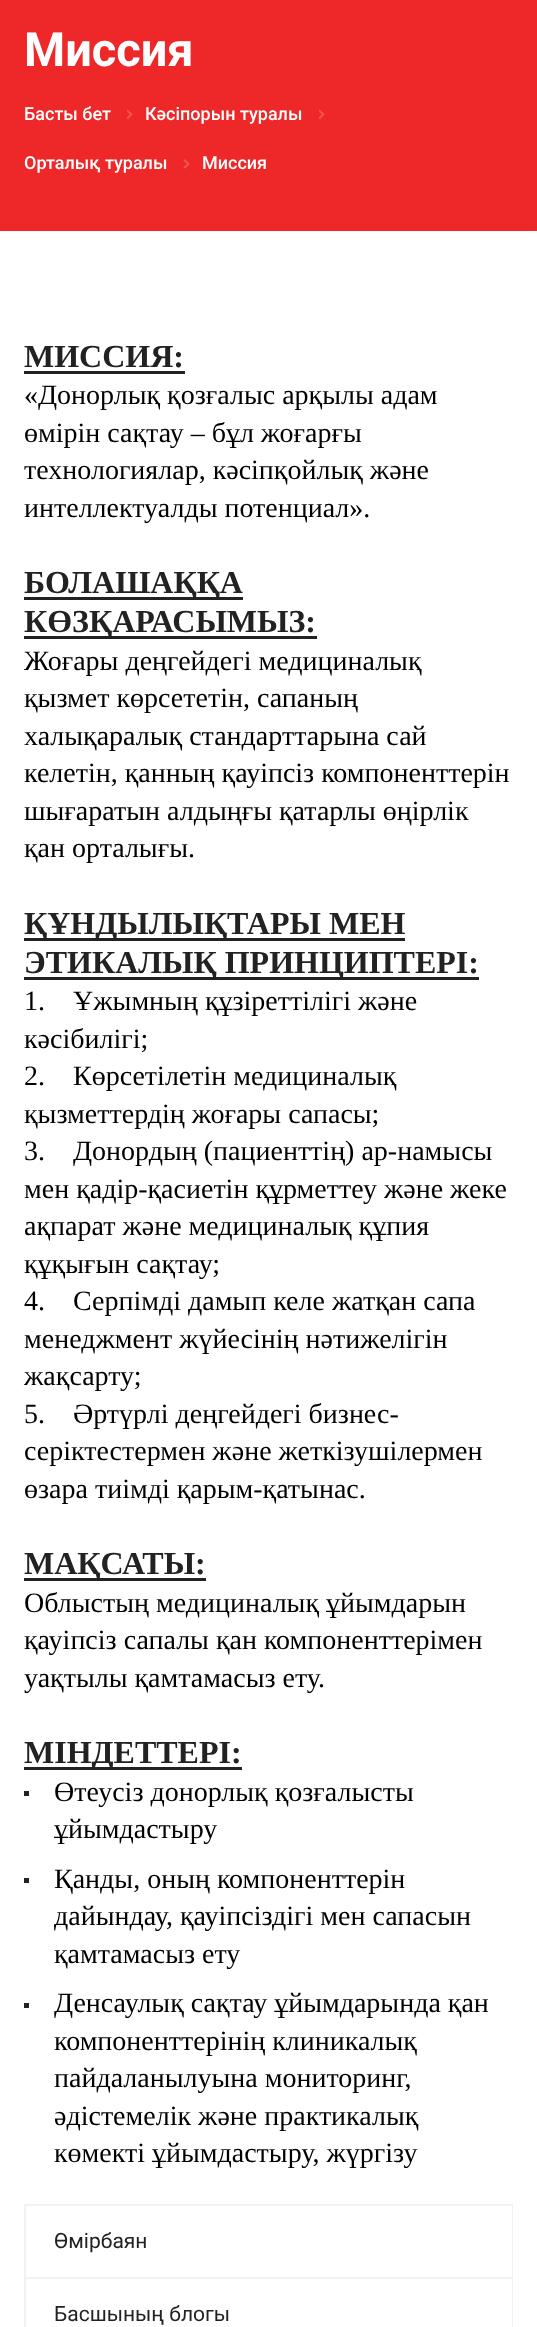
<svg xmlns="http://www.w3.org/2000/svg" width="537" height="2327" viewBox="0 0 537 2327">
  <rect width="100%" height="100%" fill="#fff"/>
  <path d="M0 0h537v231H0z" fill="#ee2828"/>
  <image x="126" y="109" width="7" height="10" href="img/1.png"/>
  <image x="318" y="109" width="7" height="10" href="img/1.png"/>
  <image x="183" y="159" width="7" height="10" href="img/2.png"/>
  <path d="M24 371h161v3H24z" fill="#222"/>
  <path d="M24 597h219v3H24z" fill="#222"/>
  <path d="M24 636h293v3H24z" fill="#222"/>
  <path d="M24 938h381v3H24z" fill="#222"/>
  <path d="M24 977h455v3H24z" fill="#222"/>
  <path d="M24 1578h182v3H24z" fill="#222"/>
  <path d="M24 1767h218v3H24z" fill="#222"/>
  <path d="M24 1791h5v5H24z" fill="#222"/>
  <path d="M24 1878h5v5H24z" fill="#222"/>
  <path d="M24 2003h5v5H24z" fill="#222"/>
  <path d="M24 2204h489v2H24z" fill="#f2f2f2"/>
  <path d="M512 2204h1v73H512z" fill="#f2f2f2"/>
  <path d="M24 2204h2v73H24z" fill="#f2f2f2"/>
  <path d="M24 2277h489v2H24z" fill="#f2f2f2"/>
  <path d="M512 2277h1v50H512z" fill="#f2f2f2"/>
  <path d="M24 2277h2v50H24z" fill="#f2f2f2"/>
  <text x="24" y="66" font-family="Roboto" font-size="47" font-weight="bold" fill="#fff">Миссия</text>
  <g font-family="Roboto" font-size="18" font-weight="500" fill="#fff">
    <text x="24" y="120">Басты бет</text>
    <text x="145" y="120">Кәсіпорын туралы</text>
    <text x="24" y="169">Орталық туралы</text>
    <text x="202" y="169">Миссия</text>
  </g>
  <text x="24" y="367" font-family="Liberation Serif" font-size="32" font-weight="bold" fill="#222">МИССИЯ:</text>
  <g font-family="Liberation Serif" font-size="28" fill="#000">
    <text x="24" y="404">«Донорлық қозғалыс арқылы адам</text>
    <text x="24" y="442">өмірін сақтау – бұл жоғарғы</text>
    <text x="24" y="479">технологиялар, кәсіпқойлық және</text>
    <text x="24" y="517">интеллектуалды потенциал».</text>
  </g>
  <g font-family="Liberation Serif" font-size="32" font-weight="bold" fill="#222">
    <text x="24" y="593">БОЛАШАҚҚА</text>
    <text x="24" y="632">КӨЗҚАРАСЫМЫЗ:</text>
  </g>
  <g font-family="Liberation Serif" font-size="28" fill="#000">
    <text x="24" y="670">Жоғары деңгейдегі медициналық</text>
    <text x="24" y="707">қызмет көрсететін, сапаның</text>
    <text x="24" y="745">халықаралық стандарттарына сай</text>
    <text x="24" y="782">келетін, қанның қауіпсіз компоненттерін</text>
    <text x="24" y="820">шығаратын алдыңғы қатарлы өңірлік</text>
    <text x="24" y="857">қан орталығы.</text>
  </g>
  <g font-family="Liberation Serif" font-size="32" font-weight="bold" fill="#222">
    <text x="24" y="934">ҚҰНДЫЛЫҚТАРЫ МЕН</text>
    <text x="24" y="973">ЭТИКАЛЫҚ ПРИНЦИПТЕРІ:</text>
  </g>
  <g font-family="Liberation Serif" font-size="28" fill="#000">
    <text x="24" y="1010" xml:space="preserve">1.    Ұжымның құзіреттілігі және</text>
    <text x="24" y="1048">кәсібилігі;</text>
    <text x="24" y="1085" xml:space="preserve">2.    Көрсетілетін медициналық</text>
    <text x="24" y="1123">қызметтердің жоғары сапасы;</text>
    <text x="24" y="1160" xml:space="preserve">3.    Донордың (пациенттің) ар-намысы</text>
    <text x="24" y="1198">мен қадір-қасиетін құрметтеу және жеке</text>
    <text x="24" y="1235">ақпарат және медициналық құпия</text>
    <text x="24" y="1273">құқығын сақтау;</text>
    <text x="24" y="1310" xml:space="preserve">4.    Серпімді дамып келе жатқан сапа</text>
    <text x="24" y="1348">менеджмент жүйесінің нәтижелігін</text>
    <text x="24" y="1385">жақсарту;</text>
    <text x="24" y="1423" xml:space="preserve">5.    Әртүрлі деңгейдегі бизнес-</text>
    <text x="24" y="1460">серіктестермен және жеткізушілермен</text>
    <text x="24" y="1498">өзара тиімді қарым-қатынас.</text>
  </g>
  <text x="24" y="1574" font-family="Liberation Serif" font-size="32" font-weight="bold" fill="#222">МАҚСАТЫ:</text>
  <g font-family="Liberation Serif" font-size="28" fill="#000">
    <text x="24" y="1612">Облыстың медициналық ұйымдарын</text>
    <text x="24" y="1649">қауіпсіз сапалы қан компоненттерімен</text>
    <text x="24" y="1687">уақтылы қамтамасыз ету.</text>
  </g>
  <text x="24" y="1763" font-family="Liberation Serif" font-size="32" font-weight="bold" fill="#222">МІНДЕТТЕРІ:</text>
  <g font-family="Liberation Serif" font-size="28" fill="#000">
    <text x="54" y="1801">Өтеусіз донорлық қозғалысты</text>
    <text x="54" y="1838">ұйымдастыру</text>
    <text x="54" y="1888">Қанды, оның компоненттерін</text>
    <text x="54" y="1925">дайындау, қауіпсіздігі мен сапасын</text>
    <text x="54" y="1963">қамтамасыз ету</text>
    <text x="54" y="2012">Денсаулық сақтау ұйымдарында қан</text>
    <text x="54" y="2050">компоненттерінің клиникалық</text>
    <text x="54" y="2087">пайдаланылуына мониторинг,</text>
    <text x="54" y="2125">әдістемелік және практикалық</text>
    <text x="54" y="2162">көмекті ұйымдастыру, жүргізу</text>
  </g>
  <g font-family="Roboto" font-size="21" fill="#222">
    <text x="54" y="2248">Өмірбаян</text>
    <text x="54" y="2321">Басшының блогы</text>
  </g>
</svg>
